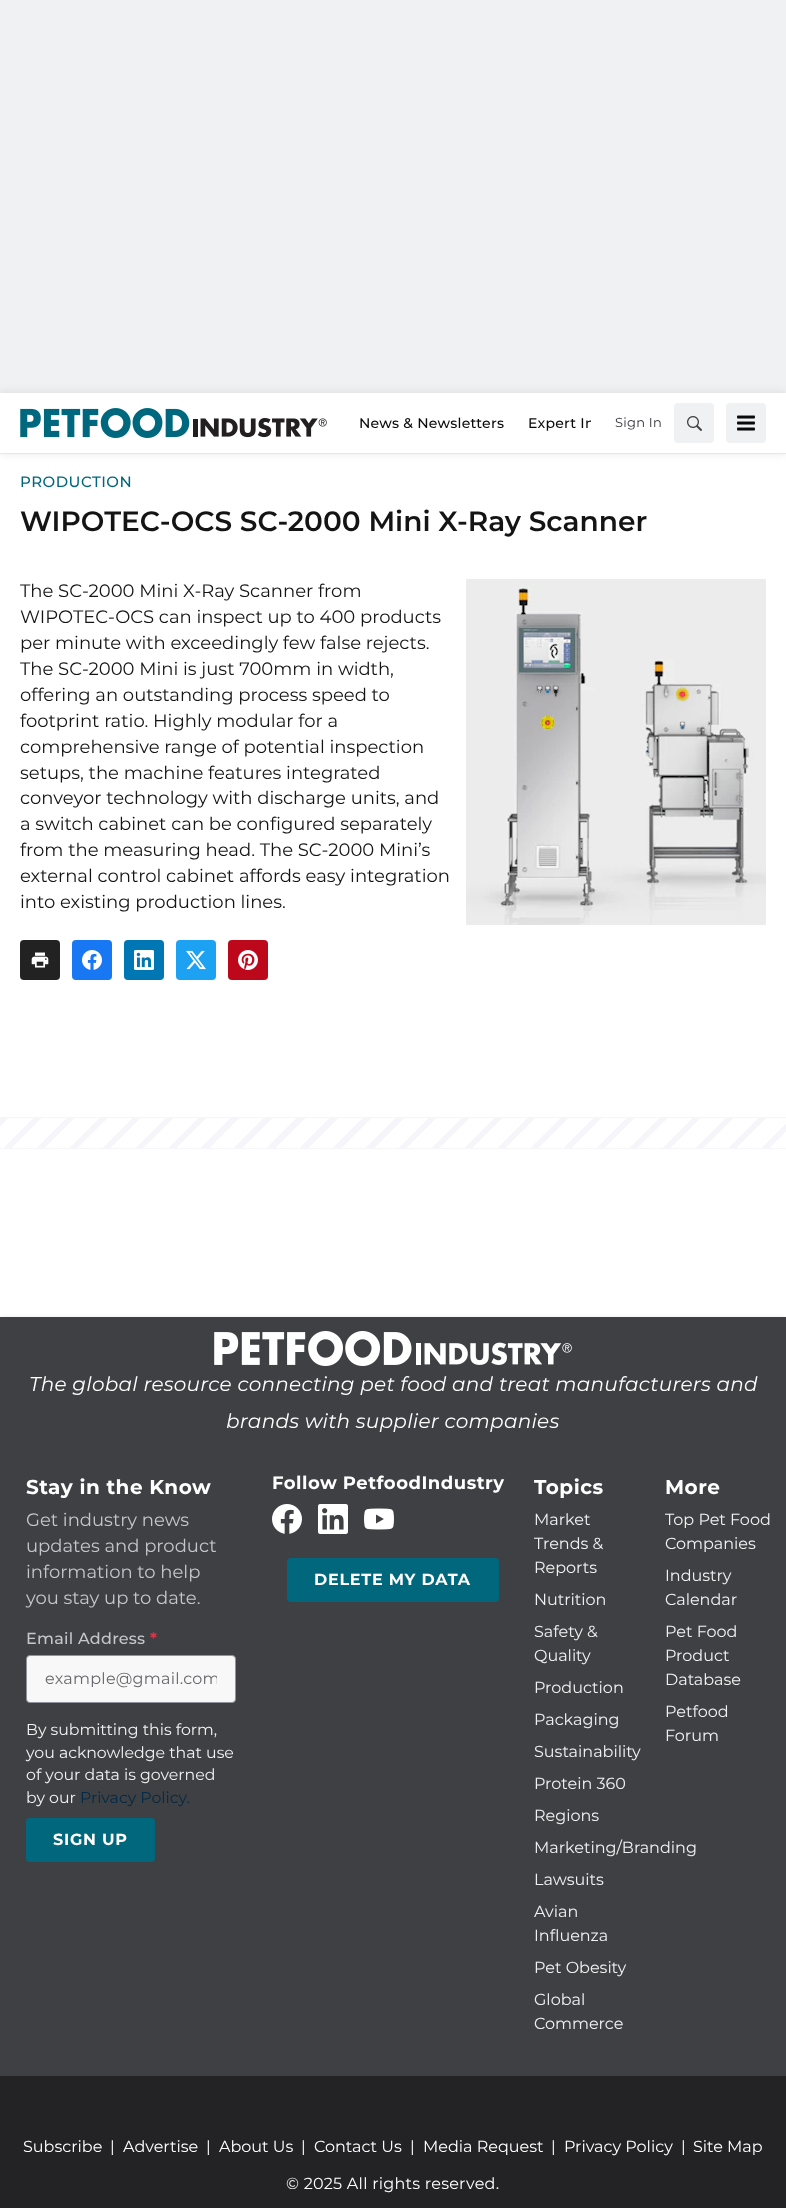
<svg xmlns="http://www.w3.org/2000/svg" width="786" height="2208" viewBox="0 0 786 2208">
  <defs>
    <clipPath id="clip1"><path d="M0 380H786V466H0ZM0 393H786V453H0Z" clip-rule="evenodd"/></clipPath>
    <linearGradient id="g1" gradientUnits="userSpaceOnUse" x1="597" y1="1337" x2="185" y2="925"><stop offset="0" stop-color="#fff"/><stop offset="0.01" stop-color="#fff"/><stop offset="0.01" stop-color="#f5f5fa"/><stop offset="0.01" stop-color="#f5f5fa"/><stop offset="0.01" stop-color="#fff"/><stop offset="0.02" stop-color="#fff"/><stop offset="0.02" stop-color="#f5f5fa"/><stop offset="0.03" stop-color="#f5f5fa"/><stop offset="0.03" stop-color="#fff"/><stop offset="0.04" stop-color="#fff"/><stop offset="0.04" stop-color="#f5f5fa"/><stop offset="0.04" stop-color="#f5f5fa"/><stop offset="0.04" stop-color="#fff"/><stop offset="0.05" stop-color="#fff"/><stop offset="0.05" stop-color="#f5f5fa"/><stop offset="0.05" stop-color="#f5f5fa"/><stop offset="0.05" stop-color="#fff"/><stop offset="0.06" stop-color="#fff"/><stop offset="0.06" stop-color="#f5f5fa"/><stop offset="0.07" stop-color="#f5f5fa"/><stop offset="0.07" stop-color="#fff"/><stop offset="0.08" stop-color="#fff"/><stop offset="0.08" stop-color="#f5f5fa"/><stop offset="0.08" stop-color="#f5f5fa"/><stop offset="0.08" stop-color="#fff"/><stop offset="0.09" stop-color="#fff"/><stop offset="0.09" stop-color="#f5f5fa"/><stop offset="0.09" stop-color="#f5f5fa"/><stop offset="0.09" stop-color="#fff"/><stop offset="0.1" stop-color="#fff"/><stop offset="0.1" stop-color="#f5f5fa"/><stop offset="0.11" stop-color="#f5f5fa"/><stop offset="0.11" stop-color="#fff"/><stop offset="0.12" stop-color="#fff"/><stop offset="0.12" stop-color="#f5f5fa"/><stop offset="0.12" stop-color="#f5f5fa"/><stop offset="0.12" stop-color="#fff"/><stop offset="0.13" stop-color="#fff"/><stop offset="0.13" stop-color="#f5f5fa"/><stop offset="0.13" stop-color="#f5f5fa"/><stop offset="0.13" stop-color="#fff"/><stop offset="0.14" stop-color="#fff"/><stop offset="0.14" stop-color="#f5f5fa"/><stop offset="0.15" stop-color="#f5f5fa"/><stop offset="0.15" stop-color="#fff"/><stop offset="0.16" stop-color="#fff"/><stop offset="0.16" stop-color="#f5f5fa"/><stop offset="0.16" stop-color="#f5f5fa"/><stop offset="0.16" stop-color="#fff"/><stop offset="0.17" stop-color="#fff"/><stop offset="0.17" stop-color="#f5f5fa"/><stop offset="0.17" stop-color="#f5f5fa"/><stop offset="0.17" stop-color="#fff"/><stop offset="0.18" stop-color="#fff"/><stop offset="0.18" stop-color="#f5f5fa"/><stop offset="0.19" stop-color="#f5f5fa"/><stop offset="0.19" stop-color="#fff"/><stop offset="0.2" stop-color="#fff"/><stop offset="0.2" stop-color="#f5f5fa"/><stop offset="0.2" stop-color="#f5f5fa"/><stop offset="0.2" stop-color="#fff"/><stop offset="0.21" stop-color="#fff"/><stop offset="0.21" stop-color="#f5f5fa"/><stop offset="0.21" stop-color="#f5f5fa"/><stop offset="0.21" stop-color="#fff"/><stop offset="0.22" stop-color="#fff"/><stop offset="0.22" stop-color="#f5f5fa"/><stop offset="0.23" stop-color="#f5f5fa"/><stop offset="0.23" stop-color="#fff"/><stop offset="0.24" stop-color="#fff"/><stop offset="0.24" stop-color="#f5f5fa"/><stop offset="0.24" stop-color="#f5f5fa"/><stop offset="0.24" stop-color="#fff"/><stop offset="0.25" stop-color="#fff"/><stop offset="0.25" stop-color="#f5f5fa"/><stop offset="0.25" stop-color="#f5f5fa"/><stop offset="0.25" stop-color="#fff"/><stop offset="0.26" stop-color="#fff"/><stop offset="0.26" stop-color="#f5f5fa"/><stop offset="0.27" stop-color="#f5f5fa"/><stop offset="0.27" stop-color="#fff"/><stop offset="0.28" stop-color="#fff"/><stop offset="0.28" stop-color="#f5f5fa"/><stop offset="0.28" stop-color="#f5f5fa"/><stop offset="0.28" stop-color="#fff"/><stop offset="0.29" stop-color="#fff"/><stop offset="0.29" stop-color="#f5f5fa"/><stop offset="0.29" stop-color="#f5f5fa"/><stop offset="0.29" stop-color="#fff"/><stop offset="0.3" stop-color="#fff"/><stop offset="0.3" stop-color="#f5f5fa"/><stop offset="0.31" stop-color="#f5f5fa"/><stop offset="0.31" stop-color="#fff"/><stop offset="0.32" stop-color="#fff"/><stop offset="0.32" stop-color="#f5f5fa"/><stop offset="0.32" stop-color="#f5f5fa"/><stop offset="0.32" stop-color="#fff"/><stop offset="0.33" stop-color="#fff"/><stop offset="0.33" stop-color="#f5f5fa"/><stop offset="0.33" stop-color="#f5f5fa"/><stop offset="0.33" stop-color="#fff"/><stop offset="0.34" stop-color="#fff"/><stop offset="0.34" stop-color="#f5f5fa"/><stop offset="0.35" stop-color="#f5f5fa"/><stop offset="0.35" stop-color="#fff"/><stop offset="0.36" stop-color="#fff"/><stop offset="0.36" stop-color="#f5f5fa"/><stop offset="0.36" stop-color="#f5f5fa"/><stop offset="0.36" stop-color="#fff"/><stop offset="0.37" stop-color="#fff"/><stop offset="0.37" stop-color="#f5f5fa"/><stop offset="0.37" stop-color="#f5f5fa"/><stop offset="0.37" stop-color="#fff"/><stop offset="0.38" stop-color="#fff"/><stop offset="0.38" stop-color="#f5f5fa"/><stop offset="0.39" stop-color="#f5f5fa"/><stop offset="0.39" stop-color="#fff"/><stop offset="0.4" stop-color="#fff"/><stop offset="0.4" stop-color="#f5f5fa"/><stop offset="0.4" stop-color="#f5f5fa"/><stop offset="0.4" stop-color="#fff"/><stop offset="0.41" stop-color="#fff"/><stop offset="0.41" stop-color="#f5f5fa"/><stop offset="0.41" stop-color="#f5f5fa"/><stop offset="0.41" stop-color="#fff"/><stop offset="0.42" stop-color="#fff"/><stop offset="0.42" stop-color="#f5f5fa"/><stop offset="0.43" stop-color="#f5f5fa"/><stop offset="0.43" stop-color="#fff"/><stop offset="0.44" stop-color="#fff"/><stop offset="0.44" stop-color="#f5f5fa"/><stop offset="0.44" stop-color="#f5f5fa"/><stop offset="0.44" stop-color="#fff"/><stop offset="0.45" stop-color="#fff"/><stop offset="0.45" stop-color="#f5f5fa"/><stop offset="0.45" stop-color="#f5f5fa"/><stop offset="0.45" stop-color="#fff"/><stop offset="0.46" stop-color="#fff"/><stop offset="0.46" stop-color="#f5f5fa"/><stop offset="0.47" stop-color="#f5f5fa"/><stop offset="0.47" stop-color="#fff"/><stop offset="0.48" stop-color="#fff"/><stop offset="0.48" stop-color="#f5f5fa"/><stop offset="0.48" stop-color="#f5f5fa"/><stop offset="0.48" stop-color="#fff"/><stop offset="0.49" stop-color="#fff"/><stop offset="0.49" stop-color="#f5f5fa"/><stop offset="0.49" stop-color="#f5f5fa"/><stop offset="0.49" stop-color="#fff"/><stop offset="0.5" stop-color="#fff"/><stop offset="0.5" stop-color="#f5f5fa"/><stop offset="0.51" stop-color="#f5f5fa"/><stop offset="0.51" stop-color="#fff"/><stop offset="0.52" stop-color="#fff"/><stop offset="0.52" stop-color="#f5f5fa"/><stop offset="0.52" stop-color="#f5f5fa"/><stop offset="0.52" stop-color="#fff"/><stop offset="0.53" stop-color="#fff"/><stop offset="0.53" stop-color="#f5f5fa"/><stop offset="0.53" stop-color="#f5f5fa"/><stop offset="0.53" stop-color="#fff"/><stop offset="0.54" stop-color="#fff"/><stop offset="0.54" stop-color="#f5f5fa"/><stop offset="0.55" stop-color="#f5f5fa"/><stop offset="0.55" stop-color="#fff"/><stop offset="0.56" stop-color="#fff"/><stop offset="0.56" stop-color="#f5f5fa"/><stop offset="0.56" stop-color="#f5f5fa"/><stop offset="0.56" stop-color="#fff"/><stop offset="0.57" stop-color="#fff"/><stop offset="0.57" stop-color="#f5f5fa"/><stop offset="0.57" stop-color="#f5f5fa"/><stop offset="0.57" stop-color="#fff"/><stop offset="0.58" stop-color="#fff"/><stop offset="0.58" stop-color="#f5f5fa"/><stop offset="0.59" stop-color="#f5f5fa"/><stop offset="0.59" stop-color="#fff"/><stop offset="0.6" stop-color="#fff"/><stop offset="0.6" stop-color="#f5f5fa"/><stop offset="0.6" stop-color="#f5f5fa"/><stop offset="0.6" stop-color="#fff"/><stop offset="0.61" stop-color="#fff"/><stop offset="0.61" stop-color="#f5f5fa"/><stop offset="0.61" stop-color="#f5f5fa"/><stop offset="0.61" stop-color="#fff"/><stop offset="0.62" stop-color="#fff"/><stop offset="0.62" stop-color="#f5f5fa"/><stop offset="0.63" stop-color="#f5f5fa"/><stop offset="0.63" stop-color="#fff"/><stop offset="0.64" stop-color="#fff"/><stop offset="0.64" stop-color="#f5f5fa"/><stop offset="0.64" stop-color="#f5f5fa"/><stop offset="0.64" stop-color="#fff"/><stop offset="0.65" stop-color="#fff"/><stop offset="0.65" stop-color="#f5f5fa"/><stop offset="0.65" stop-color="#f5f5fa"/><stop offset="0.65" stop-color="#fff"/><stop offset="0.66" stop-color="#fff"/><stop offset="0.66" stop-color="#f5f5fa"/><stop offset="0.67" stop-color="#f5f5fa"/><stop offset="0.67" stop-color="#fff"/><stop offset="0.68" stop-color="#fff"/><stop offset="0.68" stop-color="#f5f5fa"/><stop offset="0.68" stop-color="#f5f5fa"/><stop offset="0.68" stop-color="#fff"/><stop offset="0.69" stop-color="#fff"/><stop offset="0.69" stop-color="#f5f5fa"/><stop offset="0.69" stop-color="#f5f5fa"/><stop offset="0.69" stop-color="#fff"/><stop offset="0.7" stop-color="#fff"/><stop offset="0.7" stop-color="#f5f5fa"/><stop offset="0.71" stop-color="#f5f5fa"/><stop offset="0.71" stop-color="#fff"/><stop offset="0.72" stop-color="#fff"/><stop offset="0.72" stop-color="#f5f5fa"/><stop offset="0.72" stop-color="#f5f5fa"/><stop offset="0.72" stop-color="#fff"/><stop offset="0.73" stop-color="#fff"/><stop offset="0.73" stop-color="#f5f5fa"/><stop offset="0.73" stop-color="#f5f5fa"/><stop offset="0.73" stop-color="#fff"/><stop offset="0.74" stop-color="#fff"/><stop offset="0.74" stop-color="#f5f5fa"/><stop offset="0.75" stop-color="#f5f5fa"/><stop offset="0.75" stop-color="#fff"/><stop offset="0.76" stop-color="#fff"/><stop offset="0.76" stop-color="#f5f5fa"/><stop offset="0.76" stop-color="#f5f5fa"/><stop offset="0.76" stop-color="#fff"/><stop offset="0.77" stop-color="#fff"/><stop offset="0.77" stop-color="#f5f5fa"/><stop offset="0.77" stop-color="#f5f5fa"/><stop offset="0.77" stop-color="#fff"/><stop offset="0.78" stop-color="#fff"/><stop offset="0.78" stop-color="#f5f5fa"/><stop offset="0.79" stop-color="#f5f5fa"/><stop offset="0.79" stop-color="#fff"/><stop offset="0.8" stop-color="#fff"/><stop offset="0.8" stop-color="#f5f5fa"/><stop offset="0.8" stop-color="#f5f5fa"/><stop offset="0.8" stop-color="#fff"/><stop offset="0.81" stop-color="#fff"/><stop offset="0.81" stop-color="#f5f5fa"/><stop offset="0.81" stop-color="#f5f5fa"/><stop offset="0.81" stop-color="#fff"/><stop offset="0.82" stop-color="#fff"/><stop offset="0.82" stop-color="#f5f5fa"/><stop offset="0.83" stop-color="#f5f5fa"/><stop offset="0.83" stop-color="#fff"/><stop offset="0.84" stop-color="#fff"/><stop offset="0.84" stop-color="#f5f5fa"/><stop offset="0.84" stop-color="#f5f5fa"/><stop offset="0.84" stop-color="#fff"/><stop offset="0.85" stop-color="#fff"/><stop offset="0.85" stop-color="#f5f5fa"/><stop offset="0.85" stop-color="#f5f5fa"/><stop offset="0.85" stop-color="#fff"/><stop offset="0.86" stop-color="#fff"/><stop offset="0.86" stop-color="#f5f5fa"/><stop offset="0.87" stop-color="#f5f5fa"/><stop offset="0.87" stop-color="#fff"/><stop offset="0.88" stop-color="#fff"/><stop offset="0.88" stop-color="#f5f5fa"/><stop offset="0.88" stop-color="#f5f5fa"/><stop offset="0.88" stop-color="#fff"/><stop offset="0.89" stop-color="#fff"/><stop offset="0.89" stop-color="#f5f5fa"/><stop offset="0.89" stop-color="#f5f5fa"/><stop offset="0.89" stop-color="#fff"/><stop offset="0.9" stop-color="#fff"/><stop offset="0.9" stop-color="#f5f5fa"/><stop offset="0.91" stop-color="#f5f5fa"/><stop offset="0.91" stop-color="#fff"/><stop offset="0.92" stop-color="#fff"/><stop offset="0.92" stop-color="#f5f5fa"/><stop offset="0.92" stop-color="#f5f5fa"/><stop offset="0.92" stop-color="#fff"/><stop offset="0.93" stop-color="#fff"/><stop offset="0.93" stop-color="#f5f5fa"/><stop offset="0.93" stop-color="#f5f5fa"/><stop offset="0.93" stop-color="#fff"/><stop offset="0.94" stop-color="#fff"/><stop offset="0.94" stop-color="#f5f5fa"/><stop offset="0.95" stop-color="#f5f5fa"/><stop offset="0.95" stop-color="#fff"/><stop offset="0.96" stop-color="#fff"/><stop offset="0.96" stop-color="#f5f5fa"/><stop offset="0.96" stop-color="#f5f5fa"/><stop offset="0.96" stop-color="#fff"/><stop offset="0.97" stop-color="#fff"/><stop offset="0.97" stop-color="#f5f5fa"/><stop offset="0.97" stop-color="#f5f5fa"/><stop offset="0.97" stop-color="#fff"/><stop offset="0.98" stop-color="#fff"/><stop offset="0.98" stop-color="#f5f5fa"/><stop offset="0.99" stop-color="#f5f5fa"/><stop offset="0.99" stop-color="#fff"/><stop offset="1" stop-color="#fff"/><stop offset="1" stop-color="#f5f5fa"/><stop offset="1" stop-color="#f5f5fa"/></linearGradient>
    <clipPath id="clip2"><path d="M347 409h244v28H347z"/></clipPath>
    <clipPath id="clip3"><path d="M45 1669h172v19H45z"/></clipPath>
  </defs>
  <rect width="100%" height="100%" fill="#fff"/>
  <path d="M0 0h786v393H0z" fill="#f0f1f2"/>
  <g clip-path="url(#clip1)">
    <path d="M0 393h786v60H0z" fill="#78788c33" filter="blur(4px)"/>
  </g>
  <image x="20" y="408" width="307" height="30" href="img/1.png"/>
  <rect x="674" y="403" width="40" height="40" rx="4" fill="#f0f1f2"/>
  <image x="687" y="416" width="15" height="15" href="img/2.png"/>
  <rect x="726" y="403" width="40" height="40" rx="4" fill="#f0f1f2"/>
  <image x="737" y="415" width="18" height="16" href="img/3.png"/>
  <path d="M0 453h786v1H0z" fill="#e5e7eb"/>
  <image x="466" y="579" width="300" height="346" href="img/4.png"/>
  <rect x="20" y="940" width="40" height="40" rx="4" fill="#222"/>
  <image x="31" y="952" width="18" height="16" href="img/5.png"/>
  <rect x="72" y="940" width="40" height="40" rx="4" fill="#1877f2"/>
  <image x="82" y="950" width="20" height="20" href="img/6.png"/>
  <rect x="124" y="940" width="40" height="40" rx="4" fill="#0077b5"/>
  <image x="134" y="950" width="20" height="20" href="img/7.png"/>
  <rect x="176" y="940" width="40" height="40" rx="4" fill="#1da1f2"/>
  <image x="186" y="950" width="20" height="20" href="img/8.png"/>
  <rect x="228" y="940" width="40" height="40" rx="4" fill="#bd081c"/>
  <image x="238" y="950" width="20" height="20" href="img/9.png"/>
  <path d="M0 1118h786v30H0z" fill="url(#g1)"/>
  <path d="M0 1117h786v1H0z" fill="#f5f5fa"/>
  <path d="M0 1148h786v1H0z" fill="#f5f5fa"/>
  <path d="M0 1318h786v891H0z" fill="#0000001f" filter="blur(2.5px)"/>
  <path d="M0 1317h786v759H0z" fill="#3f4043"/>
  <image x="214" y="1331" width="358" height="35" href="img/10.png"/>
  <rect x="26.5" y="1655.5" width="209" height="47" rx="3.5" fill="#f8f8f8" stroke="#91939c"/>
  <rect x="26" y="1818" width="129" height="44" rx="4" fill="#00677d"/>
  <image x="272" y="1504" width="30" height="30" href="img/11.png"/>
  <image x="318" y="1504" width="30" height="30" href="img/12.png"/>
  <image x="364" y="1508" width="30" height="22" href="img/13.png"/>
  <rect x="287" y="1558" width="212" height="44" rx="4" fill="#00677d"/>
  <path d="M0 2076h786v132H0z" fill="#232325"/>
  <text x="359" y="428" font-family="Montserrat" font-size="14" font-weight="500" letter-spacing="0.25" fill="#0a0a0a">News &amp; Newsletters</text>
  <g clip-path="url(#clip2)">
    <text x="528" y="428" font-family="Montserrat" font-size="14" font-weight="500" letter-spacing="0.25" fill="#0a0a0a">Expert In</text>
  </g>
  <text x="615" y="427" font-family="Montserrat" font-size="13" letter-spacing="0.25" fill="#323239">Sign In</text>
  <text x="20" y="487" font-family="Montserrat" font-size="15" font-weight="500" letter-spacing="0.5" fill="#00677d">PRODUCTION</text>
  <text x="20" y="531" font-family="Montserrat" font-size="28" font-weight="600" fill="#141414">WIPOTEC-OCS SC-2000 Mini X-Ray Scanner</text>
  <g font-family="Montserrat" font-size="18" fill="#141414">
    <text x="20" y="597">The SC-2000 Mini X-Ray Scanner from</text>
    <text x="20" y="623">WIPOTEC-OCS can inspect up to 400 products</text>
    <text x="20" y="649">per minute with exceedingly few false rejects.</text>
    <text x="20" y="675">The SC-2000 Mini is just 700mm in width,</text>
    <text x="20" y="701">offering an outstanding process speed to</text>
    <text x="20" y="727">footprint ratio. Highly modular for a</text>
    <text x="20" y="753">comprehensive range of potential inspection</text>
    <text x="20" y="779">setups, the machine features integrated</text>
    <text x="20" y="804">conveyor technology with discharge units, and</text>
    <text x="20" y="830">a switch cabinet can be configured separately</text>
    <text x="20" y="856">from the measuring head. The SC-2000 Mini’s</text>
    <text x="20" y="882">external control cabinet affords easy integration</text>
    <text x="20" y="908">into existing production lines.</text>
  </g>
  <g font-family="Montserrat" font-size="20" font-weight="100" font-style="italic" letter-spacing="0.25" fill="#fff">
    <text x="29" y="1391">The global resource connecting pet food and treat manufacturers and</text>
    <text x="226" y="1428">brands with supplier companies</text>
  </g>
  <text x="26" y="1494" font-family="Montserrat" font-size="20" font-weight="bold" letter-spacing="0.5" fill="#fff">Stay in the Know</text>
  <g font-family="Montserrat" font-size="18" fill="#c4c6cb">
    <text x="26" y="1526">Get industry news</text>
    <text x="26" y="1552">updates and product</text>
    <text x="26" y="1578">information to help</text>
    <text x="26" y="1604">you stay up to date.</text>
  </g>
  <text x="26" y="1644" font-family="Montserrat" font-size="16" font-weight="500" letter-spacing="0.25" fill="#c4c6cb">Email Address</text>
  <text x="150" y="1644" font-family="Montserrat" font-size="16" font-weight="bold" letter-spacing="0.25" fill="#dc3545">*</text>
  <g clip-path="url(#clip3)">
    <text x="45" y="1684" font-family="Montserrat" font-size="16" letter-spacing="0.25" fill="#68686c">example@gmail.com</text>
  </g>
  <g font-family="Montserrat" font-size="15.75" fill="#f0f1f2">
    <text x="26" y="1735">By submitting this form,</text>
    <text x="26" y="1758">you acknowledge that use</text>
    <text x="26" y="1780">of your data is governed</text>
    <text x="26" y="1803">by our</text>
  </g>
  <text x="80" y="1803" font-family="Montserrat" font-size="15.75" fill="#002a47">Privacy Policy.</text>
  <text x="53" y="1845" font-family="Montserrat" font-size="16" font-weight="bold" letter-spacing="0.75" fill="#fff">SIGN UP</text>
  <text x="272" y="1489" font-family="Montserrat" font-size="18" font-weight="bold" letter-spacing="0.5" fill="#fff">Follow PetfoodIndustry</text>
  <text x="314" y="1585" font-family="Montserrat" font-size="16" font-weight="bold" letter-spacing="0.75" fill="#fff">DELETE MY DATA</text>
  <text x="534" y="1494" font-family="Montserrat" font-size="20" font-weight="bold" letter-spacing="0.5" fill="#fff">Topics</text>
  <g font-family="Montserrat" font-size="16" fill="#f0f1f2">
    <text x="534" y="1525">Market</text>
    <text x="534" y="1549">Trends &amp;</text>
    <text x="534" y="1573">Reports</text>
    <text x="534" y="1605">Nutrition</text>
    <text x="534" y="1637">Safety &amp;</text>
    <text x="534" y="1661">Quality</text>
    <text x="534" y="1693">Production</text>
    <text x="534" y="1725">Packaging</text>
    <text x="534" y="1757">Sustainability</text>
    <text x="534" y="1789">Protein 360</text>
    <text x="534" y="1821">Regions</text>
    <text x="534" y="1853">Marketing/Branding</text>
    <text x="534" y="1885">Lawsuits</text>
    <text x="534" y="1917">Avian</text>
    <text x="534" y="1941">Influenza</text>
    <text x="534" y="1973">Pet Obesity</text>
    <text x="534" y="2005">Global</text>
    <text x="534" y="2029">Commerce</text>
  </g>
  <text x="665" y="1494" font-family="Montserrat" font-size="20" font-weight="bold" letter-spacing="0.5" fill="#fff">More</text>
  <g font-family="Montserrat" font-size="16" fill="#f0f1f2">
    <text x="665" y="1525">Top Pet Food</text>
    <text x="665" y="1549">Companies</text>
    <text x="665" y="1581">Industry</text>
    <text x="665" y="1605">Calendar</text>
    <text x="665" y="1637">Pet Food</text>
    <text x="665" y="1661">Product</text>
    <text x="665" y="1685">Database</text>
    <text x="665" y="1717">Petfood</text>
    <text x="665" y="1741">Forum</text>
  </g>
  <g font-family="Montserrat" font-size="16" fill="#fff">
    <text x="23" y="2152">Subscribe</text>
    <text x="110" y="2152">|</text>
    <text x="123" y="2152">Advertise</text>
    <text x="206" y="2152">|</text>
    <text x="219" y="2152">About Us</text>
    <text x="301" y="2152">|</text>
    <text x="314" y="2152">Contact Us</text>
    <text x="410" y="2152">|</text>
    <text x="423" y="2152">Media Request</text>
    <text x="551" y="2152">|</text>
    <text x="564" y="2152">Privacy Policy</text>
    <text x="681" y="2152">|</text>
    <text x="693" y="2152">Site Map</text>
  </g>
  <text x="286" y="2189" font-family="Montserrat" font-size="16" letter-spacing="0.25" fill="#fff">© 2025 All rights reserved.</text>
</svg>
